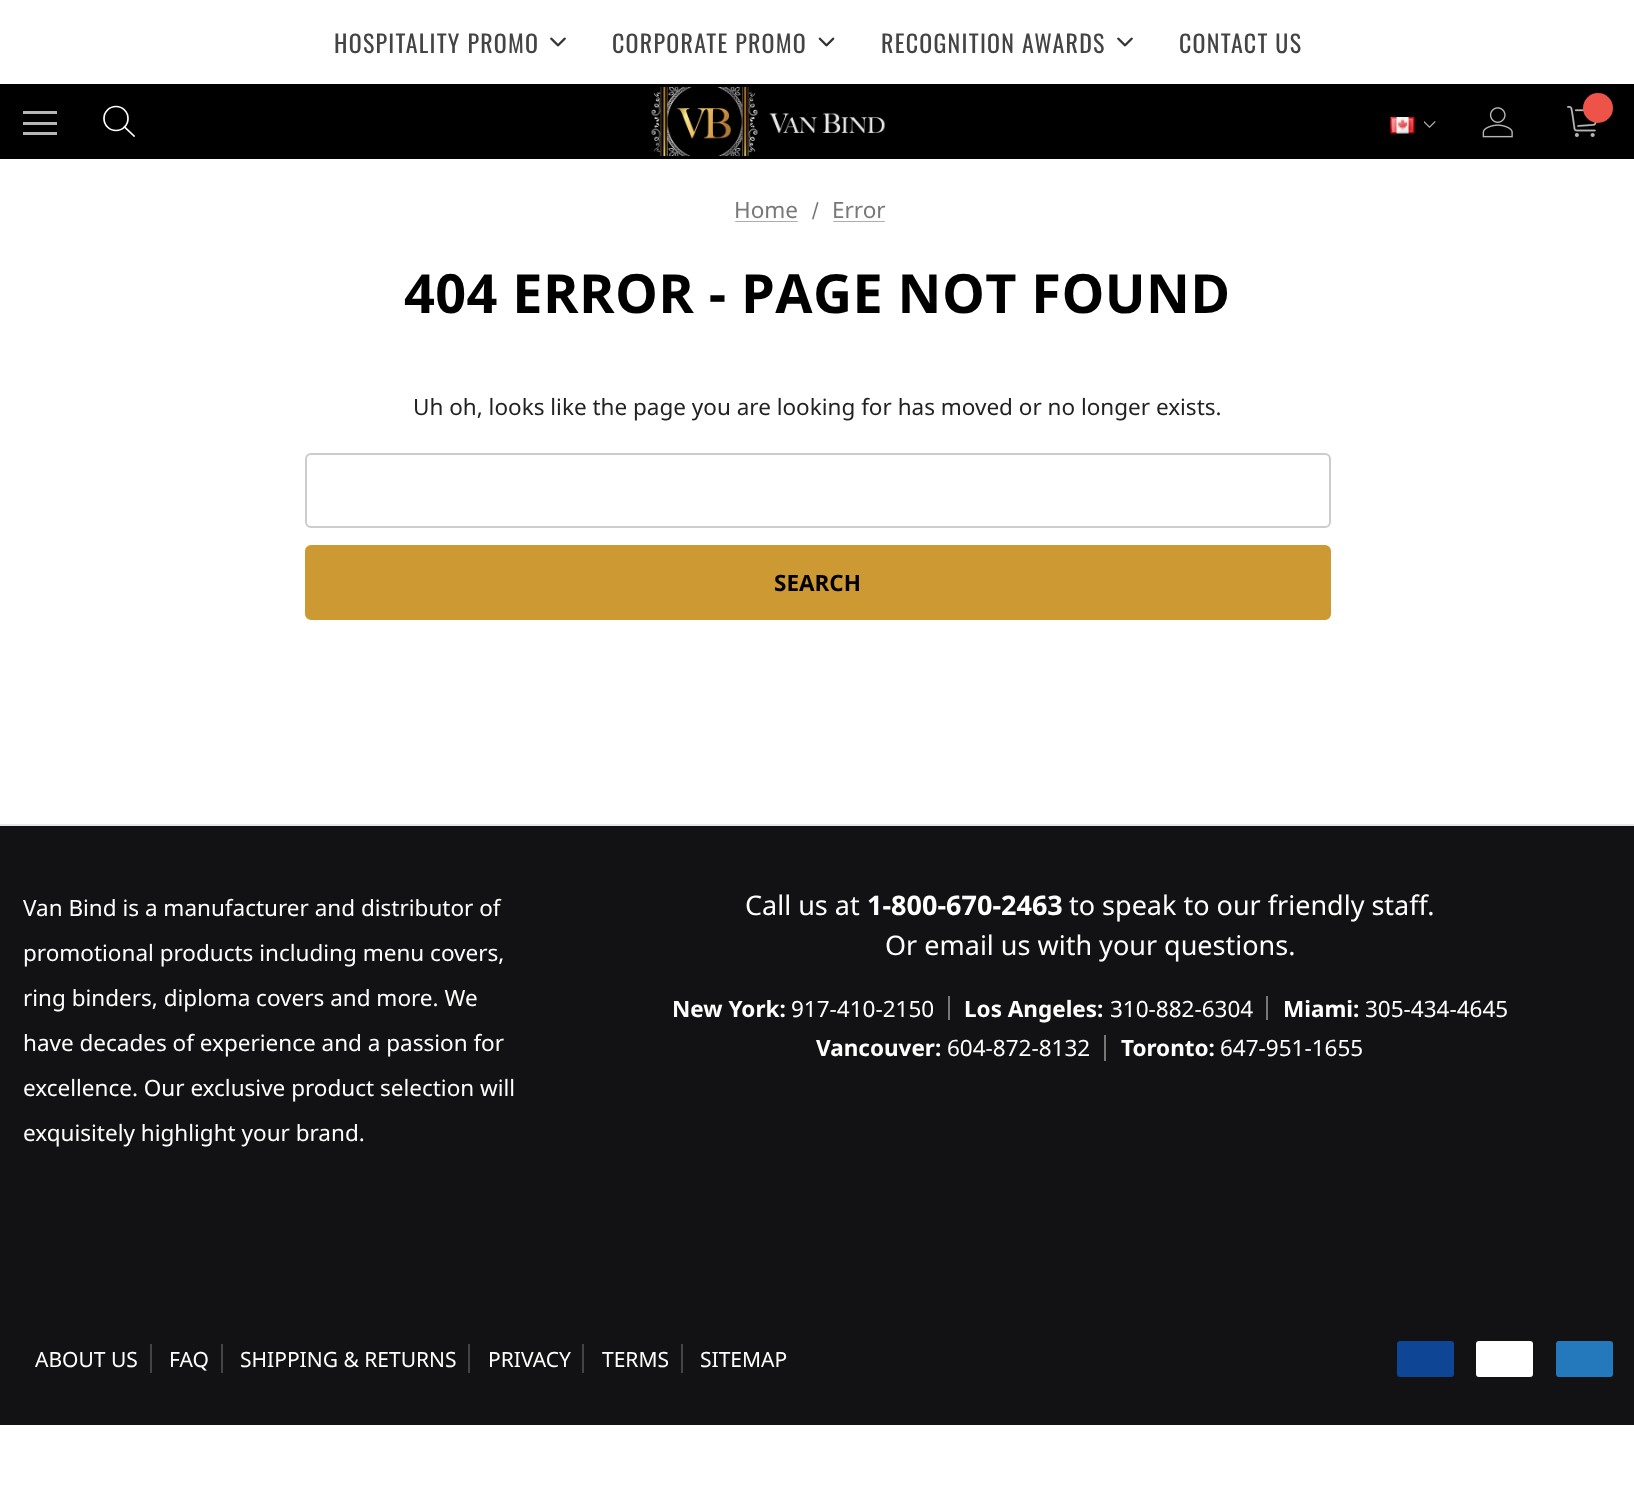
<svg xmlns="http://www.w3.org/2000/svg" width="1634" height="1504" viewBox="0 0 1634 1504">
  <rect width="100%" height="100%" fill="#fff"/>
  <path d="M0 84h1634v75H0z" fill="#000"/>
  <image x="550" y="37" width="16" height="10" href="img/1.png"/>
  <image x="818" y="37" width="17" height="10" href="img/2.png"/>
  <image x="1117" y="37" width="16" height="10" href="img/1.png"/>
  <path d="M23 122h34v3H23z" fill="#b6b6b6"/>
  <path d="M23 111h34v3H23z" fill="#b6b6b6"/>
  <path d="M23 132h34v3H23z" fill="#b6b6b6"/>
  <path d="M134 136L124.5 127" fill="none" stroke="#fff" stroke-width="1.7" stroke-linecap="square"/>
  <circle cx="116" cy="118.5" r="12" fill="none" stroke="#fff" stroke-width="1.7"/>
  <image x="651" y="87" width="234" height="69" href="img/3.png"/>
  <image x="1390" y="117" width="25" height="17" href="img/4.png"/>
  <image x="1424" y="121" width="12" height="7" href="img/5.png"/>
  <image x="1482" y="107" width="31" height="31" href="img/6.png"/>
  <image x="1567" y="106" width="30" height="31" href="img/7.png"/>
  <circle cx="1598" cy="108" r="15" fill="#ed5348"/>
  <path d="M736 221H797C797.5 221 798 221.5 798 222H735C735 221.5 735.5 221 736 221Z" fill="#aeaeae"/>
  <path d="M817 202L818.5 202.5L813.5 219.5L812 219Z" fill="#757575"/>
  <path d="M834 221H884C884.5 221 885 221.5 885 222H833C833 221.5 833.5 221 834 221Z" fill="#aeaeae"/>
  <rect x="306" y="454" width="1024" height="73" rx="5" fill="none" stroke="#ccc" stroke-width="2"/>
  <rect x="306" y="546" width="1024" height="73" rx="5" fill="#c93" stroke="#c93" stroke-width="2"/>
  <path d="M0 826h1634v599H0z" fill="#121214"/>
  <path d="M0 824h1634v2H0z" fill="#e6e6e6"/>
  <path d="M948 996h2v24H948z" fill="#777"/>
  <path d="M1266 996h2v24H1266z" fill="#777"/>
  <path d="M1104 1035h2v26H1104z" fill="#777"/>
  <path d="M150 1344h2v29H150z" fill="#444"/>
  <path d="M221 1344h2v29H221z" fill="#444"/>
  <path d="M468 1344h2v29H468z" fill="#444"/>
  <path d="M582 1344h2v29H582z" fill="#444"/>
  <path d="M681 1344h2v29H681z" fill="#444"/>
  <rect x="1397" y="1341" width="57" height="36" rx="3" fill="#0e4595"/>
  <rect x="1476" y="1341" width="57" height="36" rx="3" fill="#fff"/>
  <rect x="1556" y="1341" width="57" height="36" rx="3" fill="#2478bc"/>
  <g font-family="Oswald" font-size="24" letter-spacing="1.25" fill="#444">
    <text x="334" y="53">HOSPITALITY PROMO</text>
    <text x="612" y="53">CORPORATE PROMO</text>
    <text x="881" y="53">RECOGNITION AWARDS</text>
    <text x="1179" y="53">CONTACT US</text>
  </g>
  <g font-family="Noto Sans" font-size="22.5" fill="#787878">
    <text x="734" y="218">Home</text>
    <text x="832" y="218">Error</text>
  </g>
  <text x="404" y="313" font-family="Open Sans" font-size="54" font-weight="bold" letter-spacing="0.4" fill="#000">404 ERROR - PAGE NOT FOUND</text>
  <text x="413" y="415" font-family="Noto Sans" font-size="22.5" fill="#222">Uh oh, looks like the page you are looking for has moved or no longer exists.</text>
  <text x="774" y="591" font-family="Open Sans" font-size="22.5" font-weight="bold" fill="#000">SEARCH</text>
  <g font-family="Noto Sans" font-size="22.5" fill="#fff">
    <text x="23" y="916">Van Bind is a manufacturer and distributor of</text>
    <text x="23" y="961">promotional products including menu covers,</text>
    <text x="23" y="1006">ring binders, diploma covers and more. We</text>
    <text x="23" y="1051">have decades of experience and a passion for</text>
    <text x="23" y="1096">excellence. Our exclusive product selection will</text>
    <text x="23" y="1141">exquisitely highlight your brand.</text>
  </g>
  <text x="745" y="915" font-family="Noto Sans" font-size="27" fill="#fff">Call us at</text>
  <text x="867" y="915" font-family="Noto Sans" font-size="27" font-weight="bold" fill="#fff">1-800-670-2463</text>
  <g font-family="Noto Sans" font-size="27" fill="#fff">
    <text x="1069" y="915">to speak to our friendly staff.</text>
    <text x="885" y="955">Or email us with your questions.</text>
  </g>
  <text x="672" y="1017" font-family="Noto Sans" font-size="22.5" font-weight="bold" fill="#fff">New York:</text>
  <text x="791" y="1017" font-family="Noto Sans" font-size="22.5" fill="#fff">917-410-2150</text>
  <text x="964" y="1017" font-family="Noto Sans" font-size="22.5" font-weight="bold" fill="#fff">Los Angeles:</text>
  <text x="1110" y="1017" font-family="Noto Sans" font-size="22.5" fill="#fff">310-882-6304</text>
  <text x="1283" y="1017" font-family="Noto Sans" font-size="22.5" font-weight="bold" fill="#fff">Miami:</text>
  <text x="1365" y="1017" font-family="Noto Sans" font-size="22.5" fill="#fff">305-434-4645</text>
  <text x="816" y="1056" font-family="Noto Sans" font-size="22.5" font-weight="bold" fill="#fff">Vancouver:</text>
  <text x="947" y="1056" font-family="Noto Sans" font-size="22.5" fill="#fff">604-872-8132</text>
  <text x="1121" y="1056" font-family="Noto Sans" font-size="22.5" font-weight="bold" fill="#fff">Toronto:</text>
  <text x="1220" y="1056" font-family="Noto Sans" font-size="22.5" fill="#fff">647-951-1655</text>
  <g font-family="Noto Sans" font-size="21" fill="#fff">
    <text x="35" y="1367">ABOUT US</text>
    <text x="169" y="1367">FAQ</text>
    <text x="240" y="1367">SHIPPING &amp; RETURNS</text>
    <text x="488" y="1367">PRIVACY</text>
    <text x="602" y="1367">TERMS</text>
    <text x="700" y="1367">SITEMAP</text>
  </g>
</svg>
